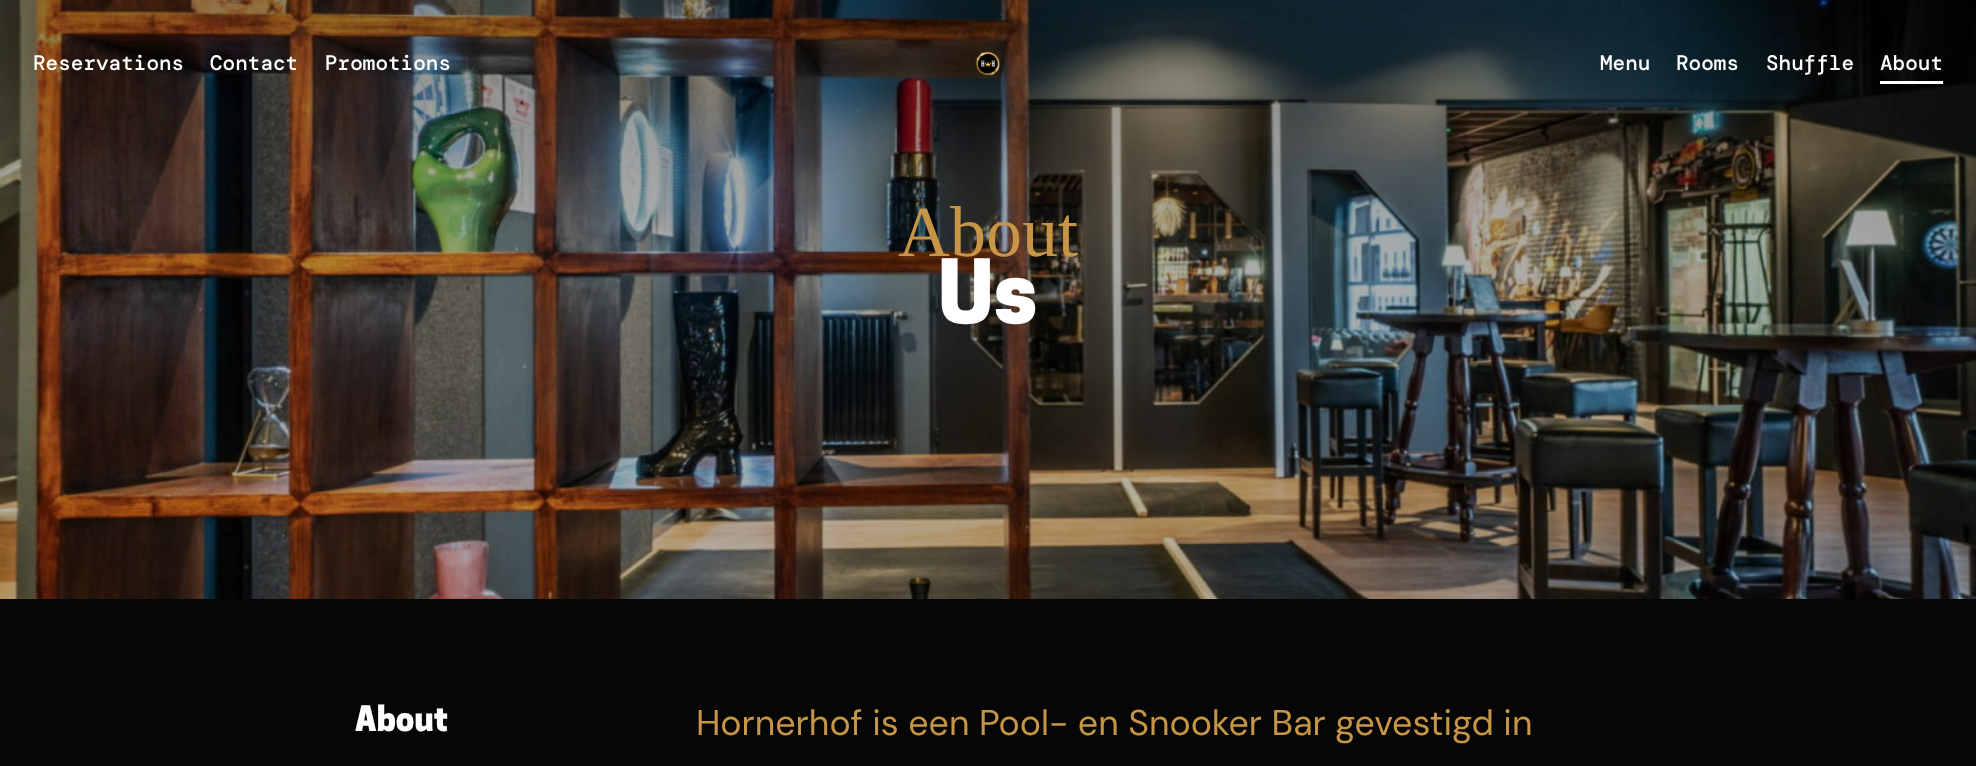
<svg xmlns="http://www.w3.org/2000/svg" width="1976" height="766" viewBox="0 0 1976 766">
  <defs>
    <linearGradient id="g1" gradientUnits="userSpaceOnUse" x1="988" y1="0" x2="988" y2="599"><stop offset="0" stop-color="#000" stop-opacity="0.2"/><stop offset="0.42" stop-color="#000" stop-opacity="0.03"/><stop offset="1" stop-color="#000" stop-opacity="0"/></linearGradient>
  </defs>
  <rect width="100%" height="100%" fill="#060606"/>
  <image x="0" y="0" width="1976" height="599" href="img/2.png"/>
  <path d="M0 0h1976v349H0z" fill="url(#g1)"/>
  <image x="975" y="51" width="25" height="25" href="img/1.png"/>
  <path d="M1880 81h63v3H1880z" fill="#fff"/>
  <g font-family="DM Mono" font-size="21" font-weight="500" fill="#fff">
    <text x="33" y="70">Reservations</text>
    <text x="210" y="70">Contact</text>
    <text x="325" y="70">Promotions</text>
    <text x="1600" y="70">Menu</text>
    <text x="1676" y="70">Rooms</text>
    <text x="1766" y="70">Shuffle</text>
    <text x="1880" y="70">About</text>
  </g>
  <text x="898" y="256" font-family="Liberation Serif" font-size="72" fill="#c69545">About</text>
  <text x="938" y="323" font-family="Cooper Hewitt" font-size="83" font-weight="900" fill="#fff">Us</text>
  <text x="355" y="731" font-family="Cooper Hewitt" font-size="33" font-weight="900" fill="#fff">About</text>
  <text x="696" y="735" font-family="DM Sans" font-size="35.75" fill="#c69545">Hornerhof is een Pool- en Snooker Bar gevestigd in</text>
</svg>
